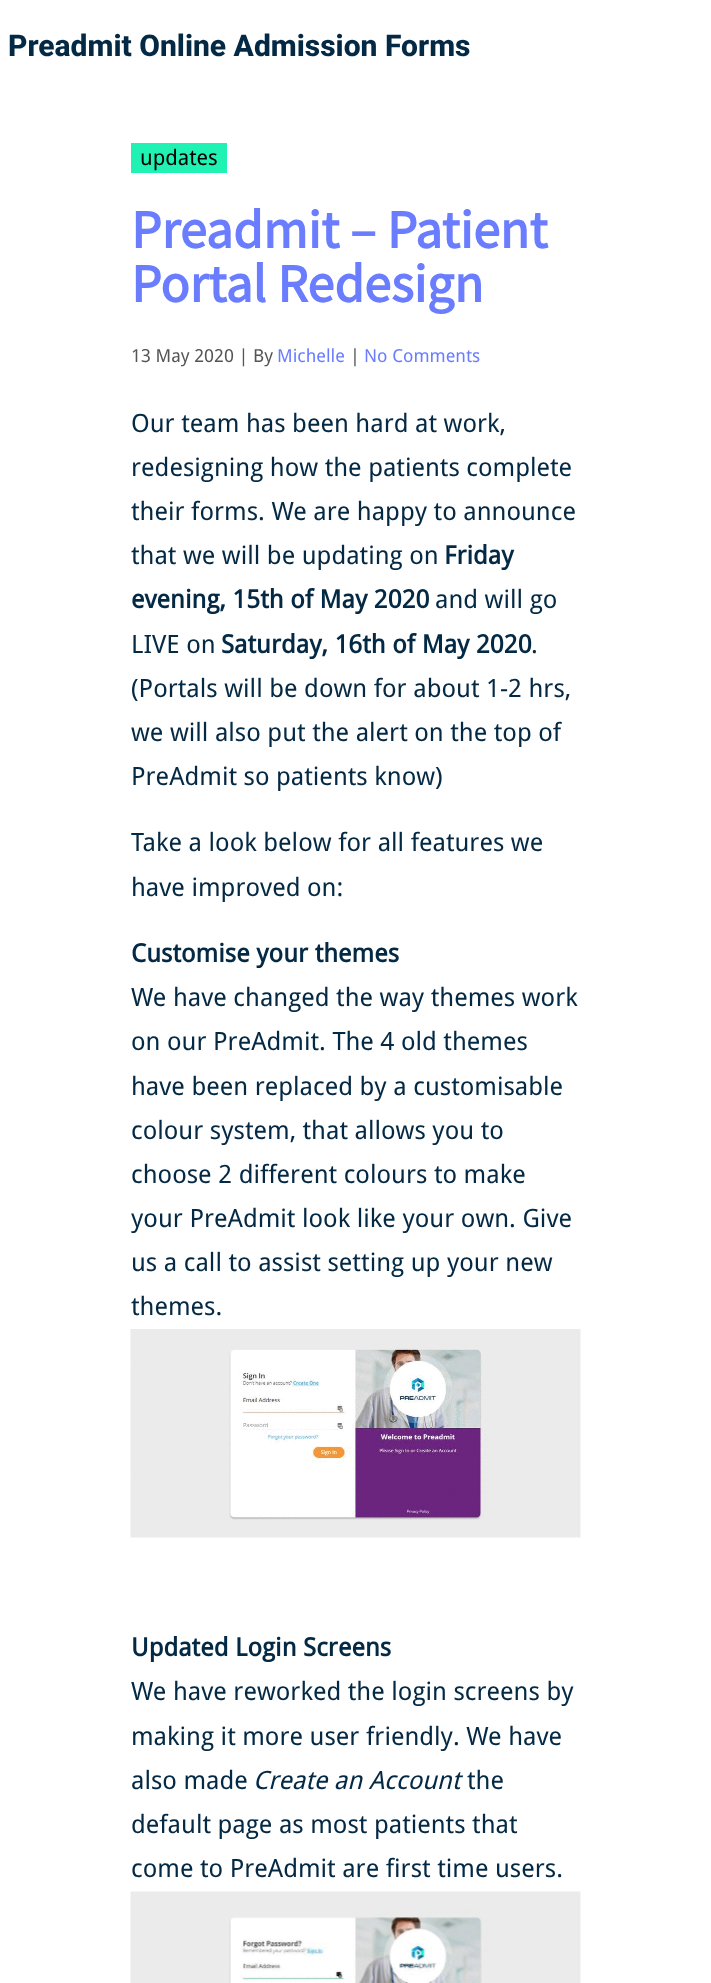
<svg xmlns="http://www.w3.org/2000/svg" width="711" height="1983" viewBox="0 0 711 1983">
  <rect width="100%" height="100%" fill="#fff"/>
  <path d="M131 143h96v30H131z" fill="#1ff2b3"/>
  <image x="130" y="1329" width="451" height="209" href="img/1.png"/>
  <image x="130" y="1891" width="451" height="92" href="img/2.png"/>
  <text x="8" y="56" font-family="Roboto" font-size="30" font-weight="800" fill="#042944">Preadmit Online Admission Forms</text>
  <text x="140" y="165" font-family="Droid Sans" font-size="21.5" fill="#000">updates</text>
  <g font-family="Source Sans Pro" font-size="54" font-weight="bold" fill="#6a7dff">
    <text x="131" y="248">Preadmit – Patient</text>
    <text x="131" y="302">Portal Redesign</text>
  </g>
  <text x="131" y="362" font-family="Droid Sans" font-size="18" fill="#555">13 May 2020 | By</text>
  <text x="277" y="362" font-family="Droid Sans" font-size="18" fill="#6a7dff">Michelle</text>
  <text x="350" y="362" font-family="Droid Sans" font-size="18" fill="#555">|</text>
  <text x="364" y="362" font-family="Droid Sans" font-size="18" fill="#6a7dff">No Comments</text>
  <g font-family="Droid Sans" font-size="25.25" fill="#042944">
    <text x="131" y="432">Our team has been hard at work,</text>
    <text x="131" y="476">redesigning how the patients complete</text>
    <text x="131" y="520">their forms. We are happy to announce</text>
    <text x="131" y="564">that we will be updating on</text>
  </g>
  <g font-family="Droid Sans" font-size="25.25" font-weight="bold" fill="#042944">
    <text x="444" y="564">Friday</text>
    <text x="131" y="608">evening, 15th of May 2020</text>
  </g>
  <g font-family="Droid Sans" font-size="25.25" fill="#042944">
    <text x="435" y="608">and will go</text>
    <text x="131" y="653">LIVE on</text>
  </g>
  <text x="221" y="653" font-family="Droid Sans" font-size="25.25" font-weight="bold" fill="#042944">Saturday, 16th of May 2020</text>
  <g font-family="Droid Sans" font-size="25.25" fill="#042944">
    <text x="531" y="653">.</text>
    <text x="131" y="697">(Portals will be down for about 1-2 hrs,</text>
    <text x="131" y="741">we will also put the alert on the top of</text>
    <text x="131" y="785">PreAdmit so patients know)</text>
    <text x="131" y="851">Take a look below for all features we</text>
    <text x="131" y="896">have improved on:</text>
  </g>
  <text x="131" y="962" font-family="Droid Sans" font-size="25.25" font-weight="bold" fill="#042944">Customise your themes</text>
  <g font-family="Droid Sans" font-size="25.25" fill="#042944">
    <text x="131" y="1006">We have changed the way themes work</text>
    <text x="131" y="1050">on our PreAdmit. The 4 old themes</text>
    <text x="131" y="1095">have been replaced by a customisable</text>
    <text x="131" y="1139">colour system, that allows you to</text>
    <text x="131" y="1183">choose 2 different colours to make</text>
    <text x="131" y="1227">your PreAdmit look like your own. Give</text>
    <text x="131" y="1271">us a call to assist setting up your new</text>
    <text x="131" y="1315">themes.</text>
  </g>
  <text x="131" y="1656" font-family="Droid Sans" font-size="25.25" font-weight="bold" fill="#042944">Updated Login Screens</text>
  <g font-family="Droid Sans" font-size="25.25" fill="#042944">
    <text x="131" y="1700">We have reworked the login screens by</text>
    <text x="131" y="1745">making it more user friendly. We have</text>
    <text x="131" y="1789">also made</text>
  </g>
  <text x="253" y="1789" font-family="Droid Sans" font-size="25.25" font-style="italic" fill="#042944">Create an Account</text>
  <g font-family="Droid Sans" font-size="25.25" fill="#042944">
    <text x="467" y="1789">the</text>
    <text x="131" y="1833">default page as most patients that</text>
    <text x="131" y="1877">come to PreAdmit are first time users.</text>
  </g>
</svg>
